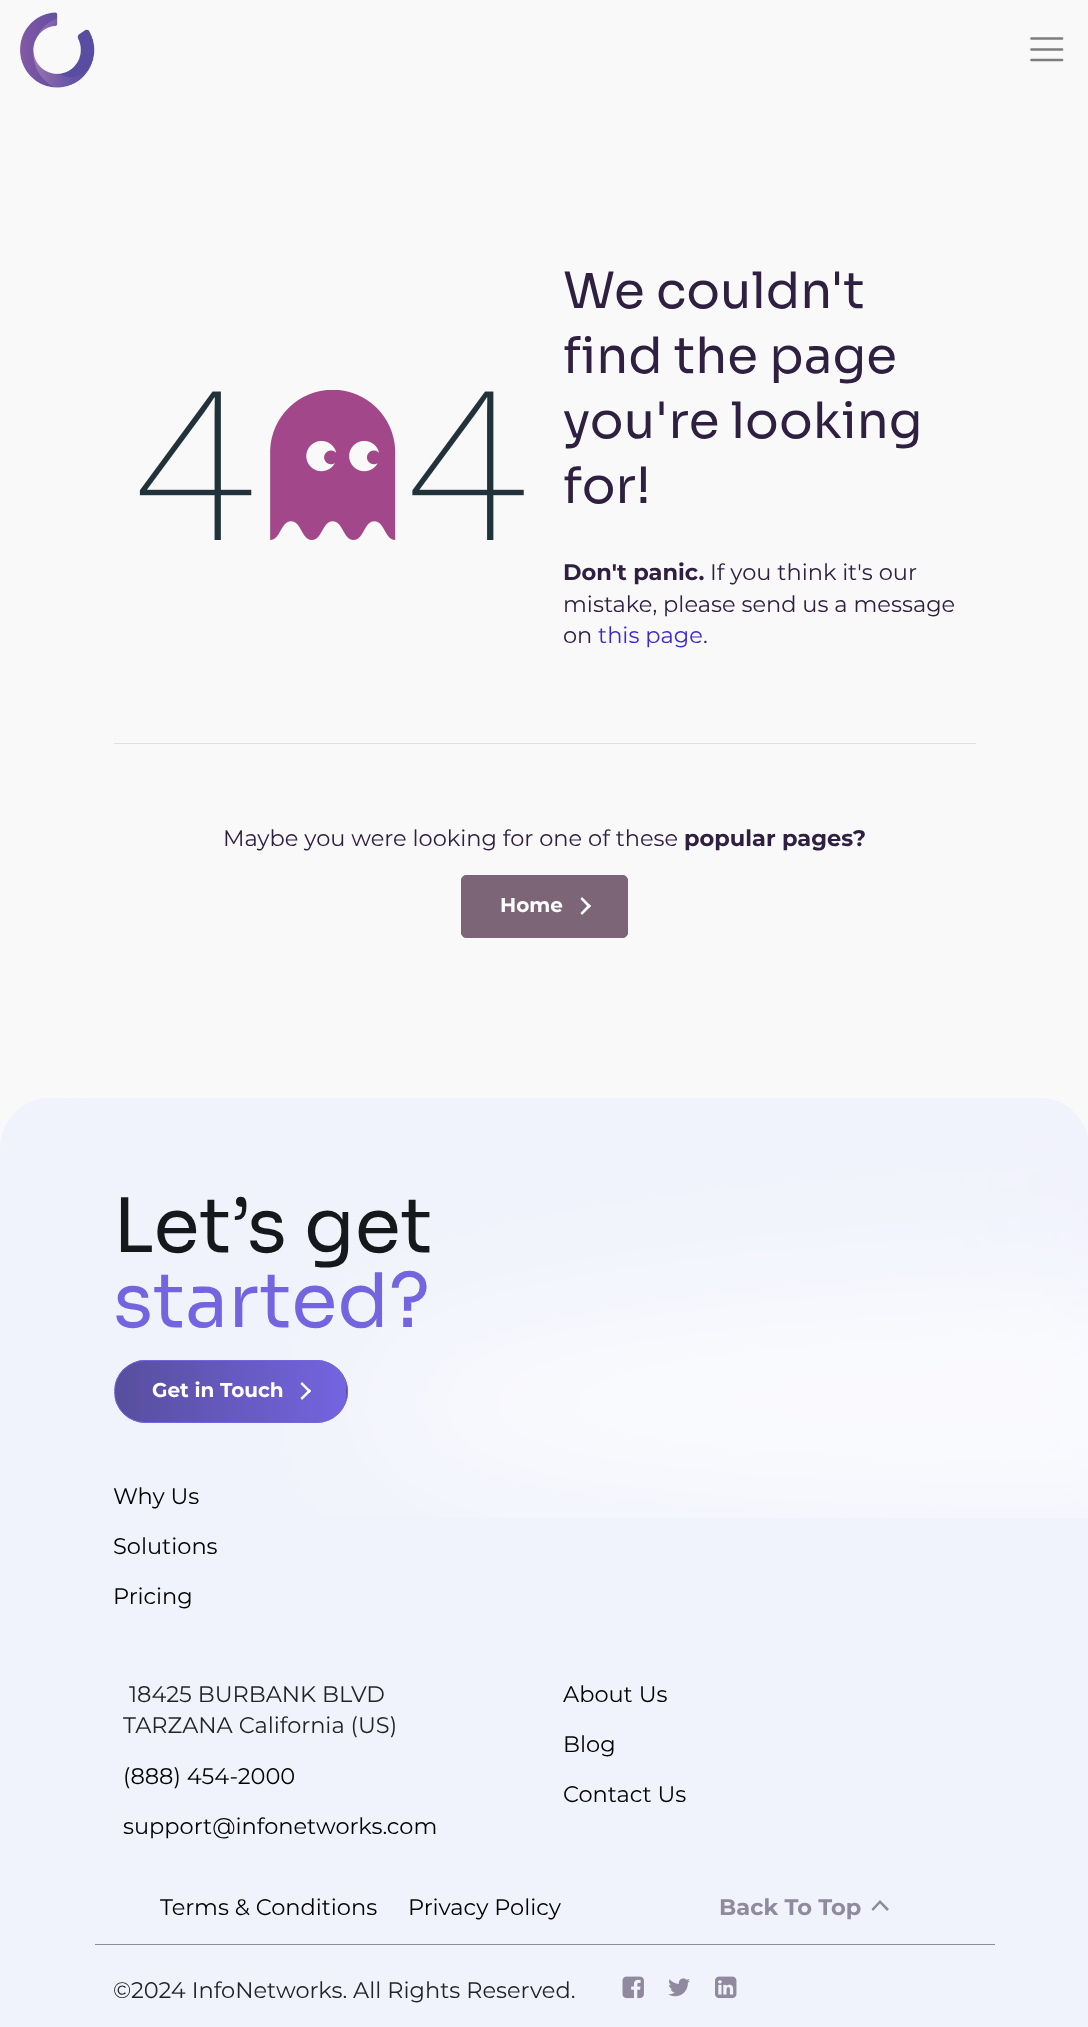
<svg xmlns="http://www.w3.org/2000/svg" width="1088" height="2027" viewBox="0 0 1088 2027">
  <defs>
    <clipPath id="clip1"><rect x="114" y="1360" width="234" height="63" rx="31.5"/></clipPath>
    <linearGradient id="g1" gradientUnits="userSpaceOnUse" x1="115" y1="1391" x2="346" y2="1391"><stop offset="0" stop-color="#584e9d"/><stop offset="1" stop-color="#7464e0"/></linearGradient>
    <linearGradient id="g2" gradientUnits="userSpaceOnUse" x1="346" y1="1391" x2="578" y2="1391"><stop offset="0" stop-color="#584e9d"/><stop offset="1" stop-color="#7464e0"/></linearGradient>
  </defs>
  <rect width="100%" height="100%" fill="#f9f9fa"/>
  <image x="20" y="12" width="75" height="76" href="img/1.png"/>
  <path d="M1031.5 38.5H1062M1031.5 49.5H1062M1031.5 60H1062" fill="none" stroke="#7d7d7d" stroke-width="2.7" stroke-linecap="round"/>
  <image x="139" y="390" width="385" height="150" href="img/2.png"/>
  <path d="M114 743h862v1H114z" fill="#e0e0e1"/>
  <rect x="461.5" y="875.5" width="166" height="62" rx="4.5" fill="#7c6576" stroke="#7c6576"/>
  <path d="M591 906L582 915L580.5 913L589 904Z" fill="#fff"/>
  <path d="M591 906L589 908L580.5 899L582 897Z" fill="#fff"/>
  <path d="M50 1098H1039C1066.5 1098 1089 1120.5 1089 1148V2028H0V1148C0 1120.5 22.5 1098 50 1098Z" fill="#f1f3fc"/>
  <image x="16" y="1098" width="1072" height="420" href="img/3.png"/>
  <g clip-path="url(#clip1)">
    <path d="M115 1360h231v63H115z" fill="url(#g1)"/>
    <path d="M346 1380h2v23H346z" fill="url(#g2)"/>
  </g>
  <rect x="114.5" y="1360.5" width="233" height="62" rx="31" fill="none" stroke="#7464e0"/>
  <path d="M311 1391L302 1400L300.5 1398L309.5 1389Z" fill="#fff"/>
  <path d="M311 1391L309.5 1393L300.5 1384L302 1382Z" fill="#fff"/>
  <path d="M880 1900L889 1909L887 1911L880 1903.5ZM871.5 1909L880 1900V1903.5L873 1911Z" fill="#908a9f"/>
  <path d="M95 1944h900v1H95z" fill="#908a9f"/>
  <image x="622" y="1976" width="22" height="23" href="img/4.png"/>
  <image x="668" y="1978" width="22" height="19" href="img/5.png"/>
  <image x="715" y="1976" width="22" height="23" href="img/6.png"/>
  <g font-family="Sora" font-size="50" fill="#2f2041">
    <text x="563" y="308">We couldn't</text>
    <text x="563" y="373">find the page</text>
    <text x="563" y="438">you're looking</text>
    <text x="563" y="503">for!</text>
  </g>
  <text x="563" y="580" font-family="Montserrat" font-size="22.5" font-weight="bold" fill="#2f2041">Don't panic.</text>
  <g font-family="Montserrat" font-size="22.5" fill="#2f2041">
    <text x="710" y="580">If you think it's our</text>
    <text x="563" y="612">mistake, please send us a message</text>
    <text x="563" y="643">on</text>
  </g>
  <text x="598" y="643" font-family="Montserrat" font-size="22.5" fill="#3f29ce">this page</text>
  <g font-family="Montserrat" font-size="22.5" fill="#2f2041">
    <text x="703" y="643">.</text>
    <text x="223" y="846">Maybe you were looking for one of these</text>
  </g>
  <text x="684" y="846" font-family="Montserrat" font-size="22.5" font-weight="bold" fill="#2f2041">popular pages?</text>
  <text x="500" y="912" font-family="Montserrat" font-size="20" font-weight="bold" fill="#fff">Home</text>
  <text x="113" y="1252" font-family="Sora" font-size="75" fill="#16181b">Let’s get</text>
  <text x="113" y="1327" font-family="Sora" font-size="75" fill="#7464e0">started?</text>
  <text x="152" y="1397" font-family="Montserrat" font-size="20" font-weight="bold" fill="#fff">Get in Touch</text>
  <g font-family="Montserrat" font-size="22.5" fill="#000">
    <text x="113" y="1504">Why Us</text>
    <text x="113" y="1554">Solutions</text>
    <text x="113" y="1604">Pricing</text>
  </g>
  <g font-family="Montserrat" font-size="22.5" fill="#212529">
    <text x="129" y="1702">18425 BURBANK BLVD</text>
    <text x="123" y="1733">TARZANA California (US)</text>
  </g>
  <g font-family="Montserrat" font-size="22.5" fill="#000">
    <text x="123" y="1784">(888) 454-2000</text>
    <text x="123" y="1834">support@infonetworks.com</text>
    <text x="563" y="1702">About Us</text>
    <text x="563" y="1752">Blog</text>
    <text x="563" y="1802">Contact Us</text>
    <text x="160" y="1915">Terms &amp; Conditions</text>
    <text x="408" y="1915">Privacy Policy</text>
  </g>
  <text x="719" y="1915" font-family="Montserrat" font-size="22.5" font-weight="bold" fill="#908a9f">Back To Top</text>
  <text x="113" y="1998" font-family="Montserrat" font-size="22.5" fill="#212529">©2024 InfoNetworks. All Rights Reserved.</text>
</svg>
